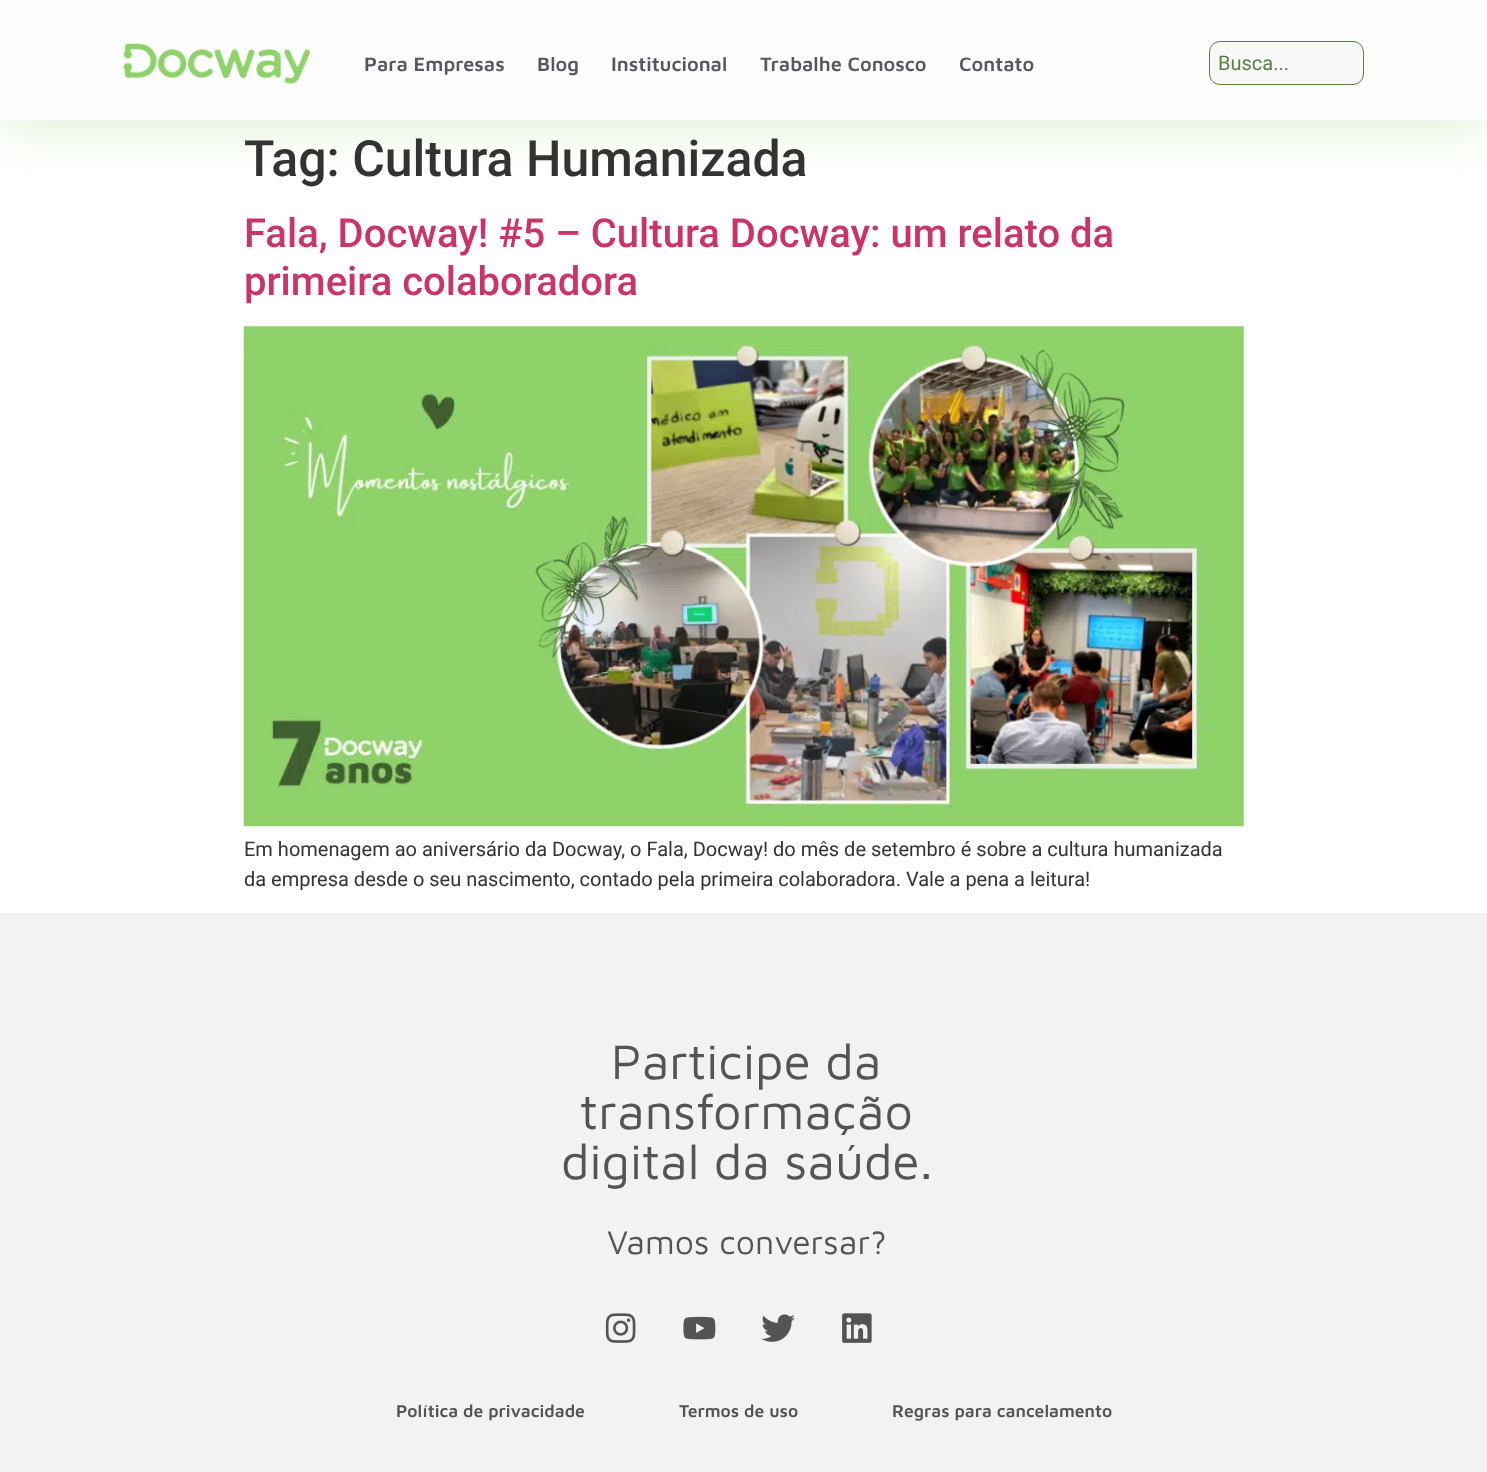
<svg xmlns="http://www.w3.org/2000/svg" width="1487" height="1472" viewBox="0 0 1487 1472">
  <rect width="100%" height="100%" fill="#fff"/>
  <path d="M0 0h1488v120H0z" fill="#8fd16a63" filter="blur(29.5px)"/>
  <path d="M0 0h1487v120H0z" fill="#fdfdfd"/>
  <image x="123" y="43" width="187" height="41" href="img/1.png"/>
  <rect x="1209.5" y="41.5" width="154" height="43" rx="10.5" fill="#f8f8f8" stroke="#588141"/>
  <image x="243" y="326" width="1001" height="501" href="img/2.png"/>
  <path d="M0 913h1487v559H0z" fill="#f2f2f2"/>
  <image x="605" y="1313" width="31" height="30" href="img/3.png"/>
  <image x="683" y="1316" width="33" height="24" href="img/4.png"/>
  <image x="761" y="1314" width="34" height="28" href="img/5.png"/>
  <image x="842" y="1313" width="30" height="30" href="img/6.png"/>
  <g font-family="Maven Pro" font-size="20" font-weight="600" fill="#54595f">
    <text x="364" y="71">Para Empresas</text>
    <text x="537" y="71">Blog</text>
    <text x="611" y="71">Institucional</text>
    <text x="760" y="71">Trabalhe Conosco</text>
    <text x="959" y="71">Contato</text>
  </g>
  <text x="1218" y="70" font-family="Roboto" font-size="20" fill="#588141">Busca...</text>
  <text x="244" y="176" font-family="Roboto" font-size="50" font-weight="500" fill="#333">Tag: Cultura Humanizada</text>
  <g font-family="Roboto" font-size="40" font-weight="500" fill="#c36">
    <text x="244" y="247">Fala, Docway! #5 – Cultura Docway: um relato da</text>
    <text x="244" y="295">primeira colaboradora</text>
  </g>
  <g font-family="Roboto" font-size="20" fill="#333">
    <text x="244" y="856">Em homenagem ao aniversário da Docway, o Fala, Docway! do mês de setembro é sobre a cultura humanizada</text>
    <text x="244" y="886">da empresa desde o seu nascimento, contado pela primeira colaboradora. Vale a pena a leitura!</text>
  </g>
  <g font-family="Maven Pro" font-size="50" fill="#565353">
    <text x="611" y="1079">Participe da</text>
    <text x="580" y="1129">transformação</text>
    <text x="561" y="1179">digital da saúde.</text>
  </g>
  <text x="607" y="1254" font-family="Maven Pro" font-size="33.75" fill="#565353">Vamos conversar?</text>
  <g font-family="Maven Pro" font-size="17.5" font-weight="600" fill="#565353">
    <text x="396" y="1417">Política de privacidade</text>
    <text x="679" y="1417">Termos de uso</text>
    <text x="892" y="1417">Regras para cancelamento</text>
  </g>
</svg>
